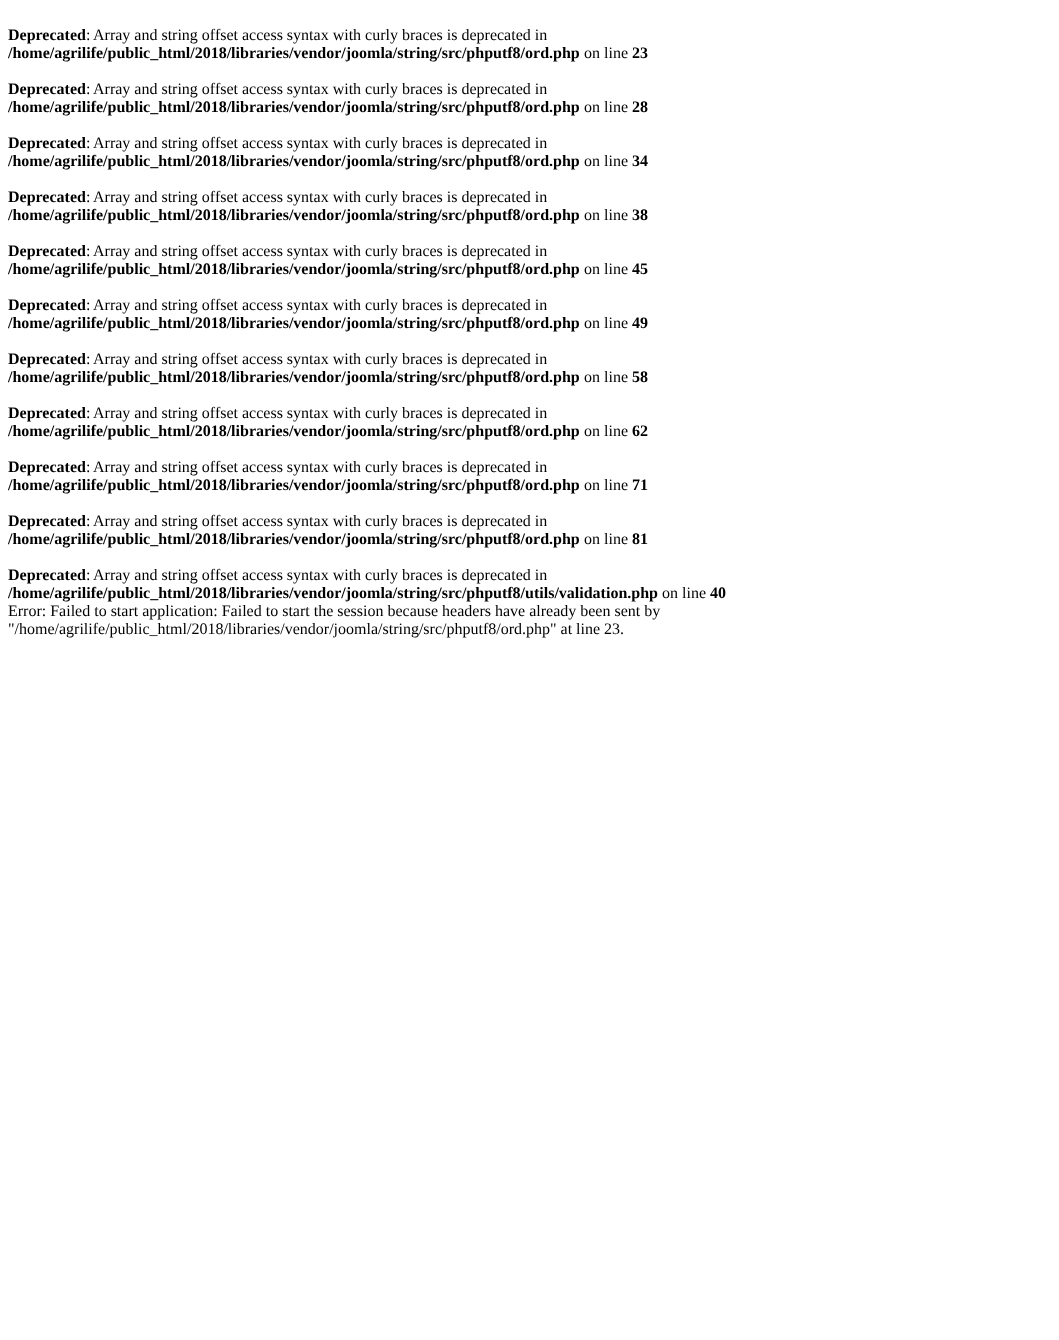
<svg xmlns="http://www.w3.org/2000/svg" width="1059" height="1340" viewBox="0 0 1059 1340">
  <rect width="100%" height="100%" fill="#fff"/>
  <text x="8" y="40" font-family="Liberation Serif" font-size="16" font-weight="bold" fill="#000">Deprecated</text>
  <g font-family="Liberation Serif" font-size="16" fill="#000">
    <text x="86" y="40">:</text>
    <text x="93" y="40">Array and string offset access syntax with curly braces is deprecated in</text>
  </g>
  <text x="8" y="58" font-family="Liberation Serif" font-size="16" font-weight="bold" fill="#000">/home/agrilife/public_html/2018/libraries/vendor/joomla/string/src/phputf8/ord.php</text>
  <text x="584" y="58" font-family="Liberation Serif" font-size="16" fill="#000">on line</text>
  <g font-family="Liberation Serif" font-size="16" font-weight="bold" fill="#000">
    <text x="632" y="58">23</text>
    <text x="8" y="94">Deprecated</text>
  </g>
  <g font-family="Liberation Serif" font-size="16" fill="#000">
    <text x="86" y="94">:</text>
    <text x="93" y="94">Array and string offset access syntax with curly braces is deprecated in</text>
  </g>
  <text x="8" y="112" font-family="Liberation Serif" font-size="16" font-weight="bold" fill="#000">/home/agrilife/public_html/2018/libraries/vendor/joomla/string/src/phputf8/ord.php</text>
  <text x="584" y="112" font-family="Liberation Serif" font-size="16" fill="#000">on line</text>
  <g font-family="Liberation Serif" font-size="16" font-weight="bold" fill="#000">
    <text x="632" y="112">28</text>
    <text x="8" y="148">Deprecated</text>
  </g>
  <g font-family="Liberation Serif" font-size="16" fill="#000">
    <text x="86" y="148">:</text>
    <text x="93" y="148">Array and string offset access syntax with curly braces is deprecated in</text>
  </g>
  <text x="8" y="166" font-family="Liberation Serif" font-size="16" font-weight="bold" fill="#000">/home/agrilife/public_html/2018/libraries/vendor/joomla/string/src/phputf8/ord.php</text>
  <text x="584" y="166" font-family="Liberation Serif" font-size="16" fill="#000">on line</text>
  <g font-family="Liberation Serif" font-size="16" font-weight="bold" fill="#000">
    <text x="632" y="166">34</text>
    <text x="8" y="202">Deprecated</text>
  </g>
  <g font-family="Liberation Serif" font-size="16" fill="#000">
    <text x="86" y="202">:</text>
    <text x="93" y="202">Array and string offset access syntax with curly braces is deprecated in</text>
  </g>
  <text x="8" y="220" font-family="Liberation Serif" font-size="16" font-weight="bold" fill="#000">/home/agrilife/public_html/2018/libraries/vendor/joomla/string/src/phputf8/ord.php</text>
  <text x="584" y="220" font-family="Liberation Serif" font-size="16" fill="#000">on line</text>
  <g font-family="Liberation Serif" font-size="16" font-weight="bold" fill="#000">
    <text x="632" y="220">38</text>
    <text x="8" y="256">Deprecated</text>
  </g>
  <g font-family="Liberation Serif" font-size="16" fill="#000">
    <text x="86" y="256">:</text>
    <text x="93" y="256">Array and string offset access syntax with curly braces is deprecated in</text>
  </g>
  <text x="8" y="274" font-family="Liberation Serif" font-size="16" font-weight="bold" fill="#000">/home/agrilife/public_html/2018/libraries/vendor/joomla/string/src/phputf8/ord.php</text>
  <text x="584" y="274" font-family="Liberation Serif" font-size="16" fill="#000">on line</text>
  <g font-family="Liberation Serif" font-size="16" font-weight="bold" fill="#000">
    <text x="632" y="274">45</text>
    <text x="8" y="310">Deprecated</text>
  </g>
  <g font-family="Liberation Serif" font-size="16" fill="#000">
    <text x="86" y="310">:</text>
    <text x="93" y="310">Array and string offset access syntax with curly braces is deprecated in</text>
  </g>
  <text x="8" y="328" font-family="Liberation Serif" font-size="16" font-weight="bold" fill="#000">/home/agrilife/public_html/2018/libraries/vendor/joomla/string/src/phputf8/ord.php</text>
  <text x="584" y="328" font-family="Liberation Serif" font-size="16" fill="#000">on line</text>
  <g font-family="Liberation Serif" font-size="16" font-weight="bold" fill="#000">
    <text x="632" y="328">49</text>
    <text x="8" y="364">Deprecated</text>
  </g>
  <g font-family="Liberation Serif" font-size="16" fill="#000">
    <text x="86" y="364">:</text>
    <text x="93" y="364">Array and string offset access syntax with curly braces is deprecated in</text>
  </g>
  <text x="8" y="382" font-family="Liberation Serif" font-size="16" font-weight="bold" fill="#000">/home/agrilife/public_html/2018/libraries/vendor/joomla/string/src/phputf8/ord.php</text>
  <text x="584" y="382" font-family="Liberation Serif" font-size="16" fill="#000">on line</text>
  <g font-family="Liberation Serif" font-size="16" font-weight="bold" fill="#000">
    <text x="632" y="382">58</text>
    <text x="8" y="418">Deprecated</text>
  </g>
  <g font-family="Liberation Serif" font-size="16" fill="#000">
    <text x="86" y="418">:</text>
    <text x="93" y="418">Array and string offset access syntax with curly braces is deprecated in</text>
  </g>
  <text x="8" y="436" font-family="Liberation Serif" font-size="16" font-weight="bold" fill="#000">/home/agrilife/public_html/2018/libraries/vendor/joomla/string/src/phputf8/ord.php</text>
  <text x="584" y="436" font-family="Liberation Serif" font-size="16" fill="#000">on line</text>
  <g font-family="Liberation Serif" font-size="16" font-weight="bold" fill="#000">
    <text x="632" y="436">62</text>
    <text x="8" y="472">Deprecated</text>
  </g>
  <g font-family="Liberation Serif" font-size="16" fill="#000">
    <text x="86" y="472">:</text>
    <text x="93" y="472">Array and string offset access syntax with curly braces is deprecated in</text>
  </g>
  <text x="8" y="490" font-family="Liberation Serif" font-size="16" font-weight="bold" fill="#000">/home/agrilife/public_html/2018/libraries/vendor/joomla/string/src/phputf8/ord.php</text>
  <text x="584" y="490" font-family="Liberation Serif" font-size="16" fill="#000">on line</text>
  <g font-family="Liberation Serif" font-size="16" font-weight="bold" fill="#000">
    <text x="632" y="490">71</text>
    <text x="8" y="526">Deprecated</text>
  </g>
  <g font-family="Liberation Serif" font-size="16" fill="#000">
    <text x="86" y="526">:</text>
    <text x="93" y="526">Array and string offset access syntax with curly braces is deprecated in</text>
  </g>
  <text x="8" y="544" font-family="Liberation Serif" font-size="16" font-weight="bold" fill="#000">/home/agrilife/public_html/2018/libraries/vendor/joomla/string/src/phputf8/ord.php</text>
  <text x="584" y="544" font-family="Liberation Serif" font-size="16" fill="#000">on line</text>
  <g font-family="Liberation Serif" font-size="16" font-weight="bold" fill="#000">
    <text x="632" y="544">81</text>
    <text x="8" y="580">Deprecated</text>
  </g>
  <g font-family="Liberation Serif" font-size="16" fill="#000">
    <text x="86" y="580">:</text>
    <text x="93" y="580">Array and string offset access syntax with curly braces is deprecated in</text>
  </g>
  <text x="8" y="598" font-family="Liberation Serif" font-size="16" font-weight="bold" fill="#000">/home/agrilife/public_html/2018/libraries/vendor/joomla/string/src/phputf8/utils/validation.php</text>
  <text x="662" y="598" font-family="Liberation Serif" font-size="16" fill="#000">on line</text>
  <text x="710" y="598" font-family="Liberation Serif" font-size="16" font-weight="bold" fill="#000">40</text>
  <g font-family="Liberation Serif" font-size="16" fill="#000">
    <text x="8" y="616">Error: Failed to start application: Failed to start the session because headers have already been sent by</text>
    <text x="8" y="634">"/home/agrilife/public_html/2018/libraries/vendor/joomla/string/src/phputf8/ord.php" at line 23.</text>
  </g>
</svg>
